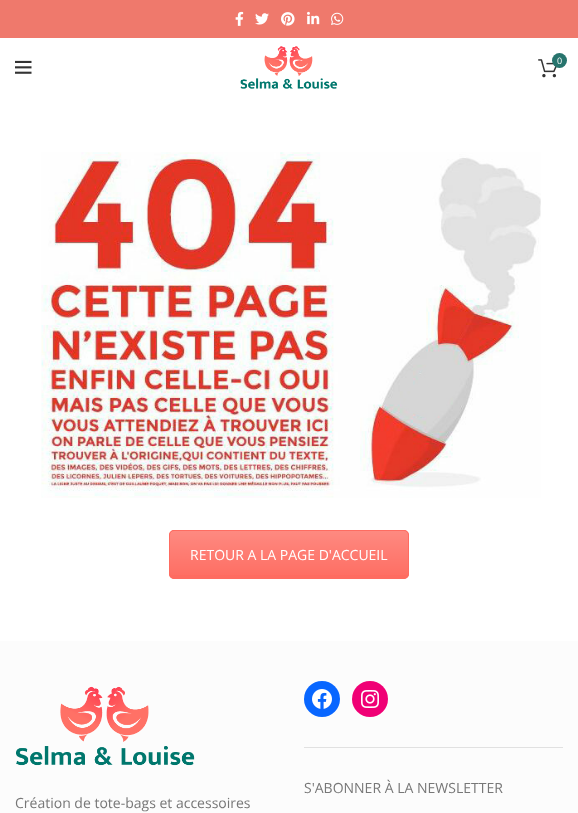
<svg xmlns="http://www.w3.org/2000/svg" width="578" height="813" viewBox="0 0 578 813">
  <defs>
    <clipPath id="clip1"><rect x="169" y="530" width="240" height="49" rx="5"/></clipPath>
    <linearGradient id="g1" gradientUnits="userSpaceOnUse" x1="289" y1="531" x2="289" y2="578"><stop offset="0" stop-color="#fff" stop-opacity="0.2"/><stop offset="1" stop-color="#fff" stop-opacity="0.01"/></linearGradient>
  </defs>
  <rect width="100%" height="100%" fill="#fff"/>
  <path d="M0 0h578v38H0z" fill="#ef796c"/>
  <image x="235" y="11" width="9" height="15" href="img/1.png"/>
  <image x="255" y="13" width="14" height="12" href="img/2.png"/>
  <image x="281" y="12" width="14" height="14" href="img/3.png"/>
  <image x="307" y="11" width="13" height="14" href="img/4.png"/>
  <image x="331" y="12" width="13" height="13" href="img/5.png"/>
  <image x="15" y="60" width="17" height="14" href="img/6.png"/>
  <image x="240" y="46" width="98" height="43" href="img/7.png"/>
  <image x="538" y="59" width="19" height="19" href="img/8.png"/>
  <circle cx="559.5" cy="60.5" r="7.5" fill="#27746d"/>
  <image x="41" y="152" width="500" height="346" href="img/9.png"/>
  <rect x="169" y="530" width="240" height="49" rx="5" fill="#fe6c61"/>
  <g clip-path="url(#clip1)">
    <path d="M169 531h240v44H169z" fill="url(#g1)"/>
  </g>
  <rect x="169.5" y="530.5" width="239" height="48" rx="4.5" fill="none" stroke="#fe6c61"/>
  <path d="M0 641h578v172H0z" fill="#fcfcfc"/>
  <path d="M304 747h259v1H304z" fill="#e1e1e1"/>
  <circle cx="322" cy="699" r="18" fill="#0866ff"/>
  <image x="312" y="689" width="20" height="20" href="img/10.png"/>
  <circle cx="370" cy="699" r="18" fill="#f00075"/>
  <image x="361" y="690" width="18" height="18" href="img/11.png"/>
  <image x="16" y="686" width="179" height="80" href="img/12.png"/>
  <text x="557" y="64" font-family="Open Sans" font-size="9" fill="#fff">0</text>
  <text x="190" y="560" font-family="Open Sans" font-size="14" fill="#fff">RETOUR A LA PAGE D'ACCUEIL</text>
  <g font-family="Open Sans" font-size="14" fill="#777">
    <text x="304" y="793">S'ABONNER À LA NEWSLETTER</text>
    <text x="15" y="808">Création de tote-bags et accessoires</text>
  </g>
</svg>
